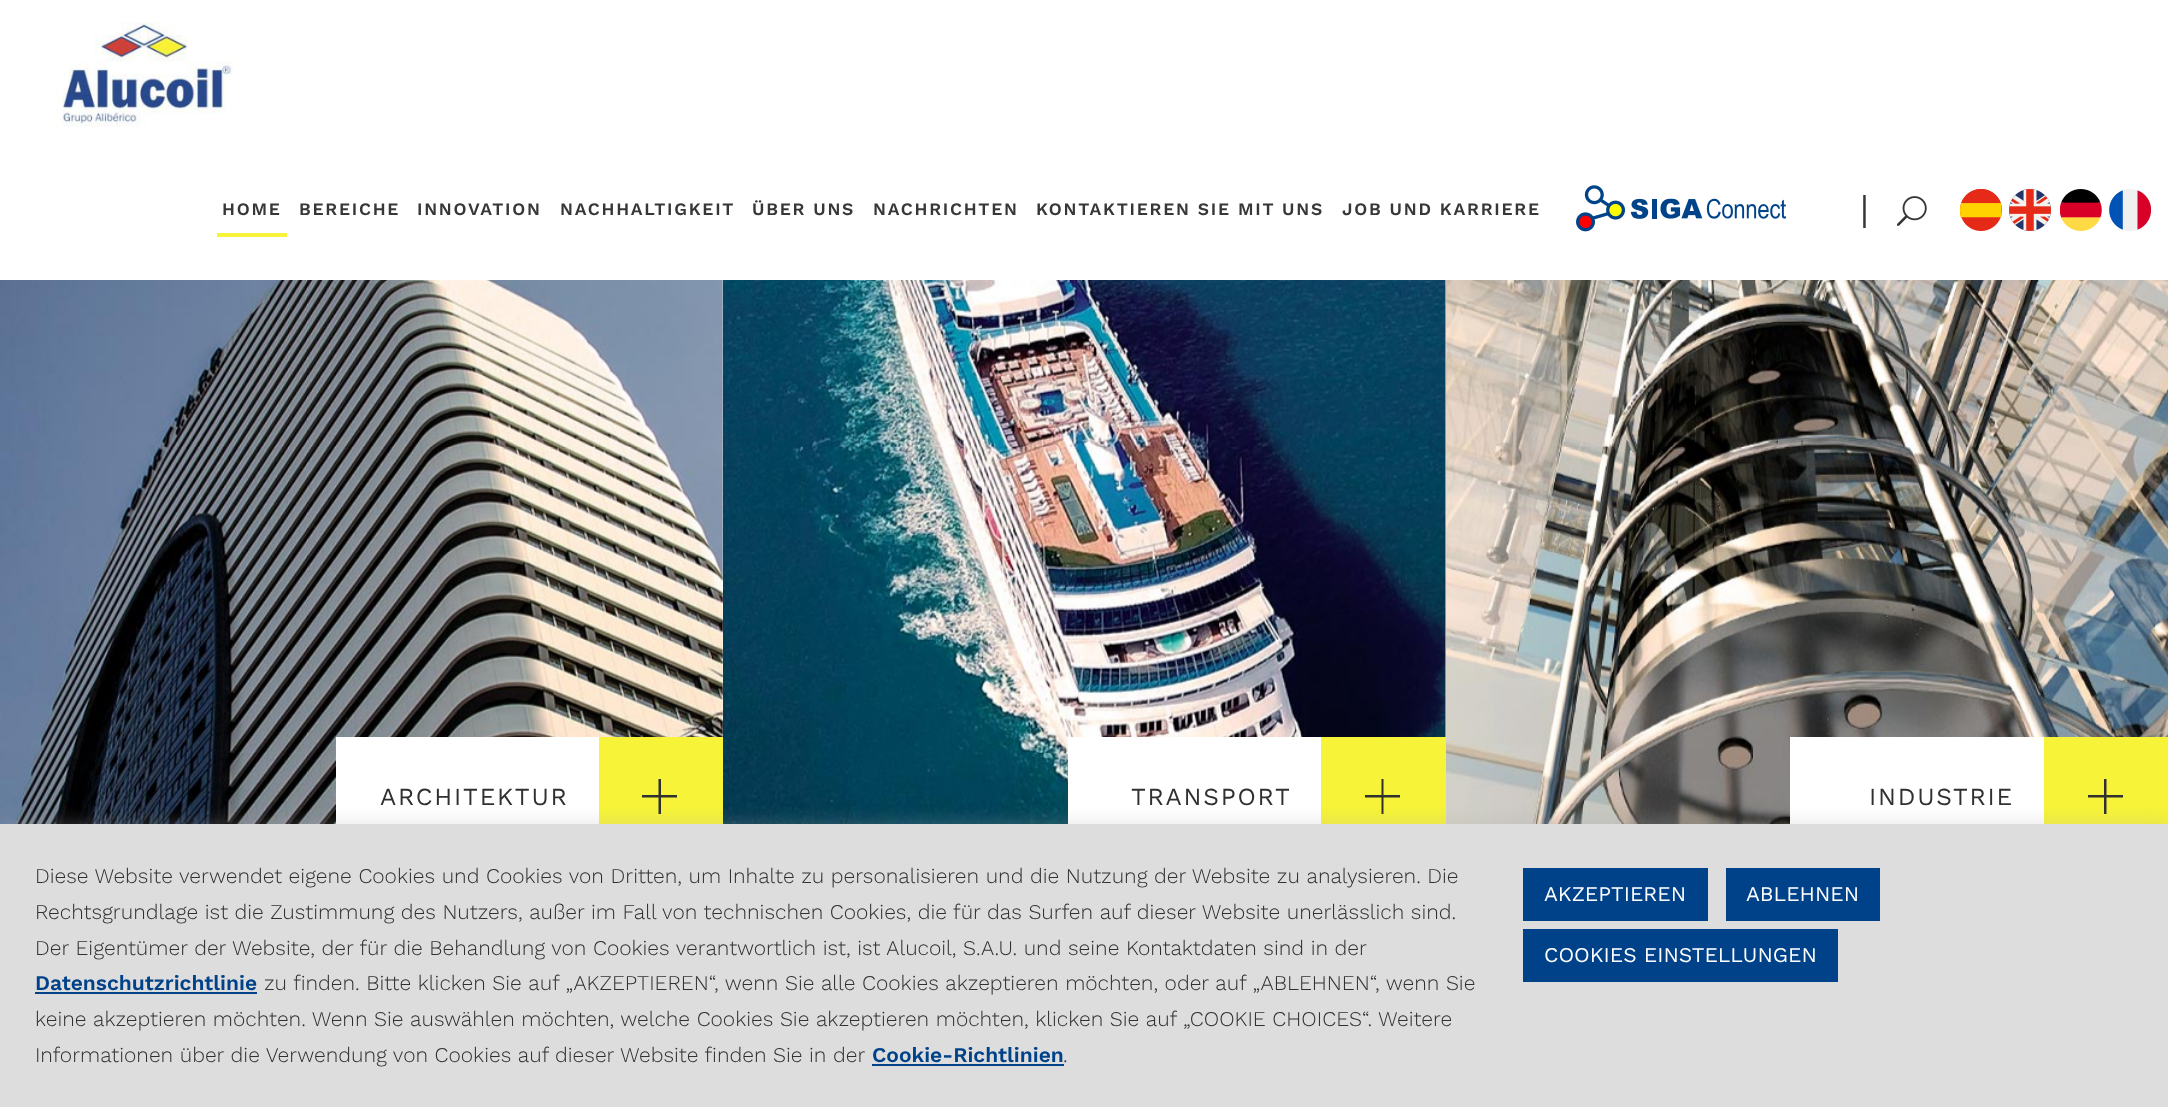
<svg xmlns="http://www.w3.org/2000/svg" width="2168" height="1107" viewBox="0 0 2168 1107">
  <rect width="100%" height="100%" fill="#fff"/>
  <image x="56" y="22" width="178" height="105" href="img/1.png"/>
  <path d="M217 233h70v4H217z" fill="#f6f338"/>
  <image x="1576" y="185" width="211" height="47" href="img/2.png"/>
  <image x="1896" y="196" width="31" height="30" href="img/3.png"/>
  <image x="1960" y="189" width="42" height="42" href="img/4.png"/>
  <image x="2009" y="189" width="42" height="42" href="img/5.png"/>
  <image x="2060" y="189" width="42" height="42" href="img/6.png"/>
  <image x="2109" y="189" width="42" height="42" href="img/7.png"/>
  <image x="0" y="280" width="723" height="544" href="img/8.png"/>
  <path d="M336 737h263v87H336z" fill="#fff"/>
  <path d="M599 737h124v87H599z" fill="#f6f338"/>
  <path d="M677 797.5H661V814H658.5V797.5H642V795H658.5V779H661V795H677Z" fill="#303030"/>
  <image x="723" y="280" width="723" height="544" href="img/9.png"/>
  <path d="M1068 737h253v87H1068z" fill="#fff"/>
  <path d="M1321 737h125v87H1321z" fill="#f6f338"/>
  <path d="M1400 797.5H1383.5V814H1381.5V797.5H1365V795H1381.5V779H1383.5V795H1400Z" fill="#303030"/>
  <image x="1446" y="280" width="722" height="544" href="img/10.png"/>
  <path d="M1790 737h254v87H1790z" fill="#fff"/>
  <path d="M2044 737h124v87H2044z" fill="#f6f338"/>
  <path d="M2123 797.5H2106.5V814H2104V797.5H2088V795H2104V779H2106.5V795H2123Z" fill="#303030"/>
  <path d="M0 823h2168v283H0z" fill="#acabab4d" filter="blur(9px)"/>
  <path d="M0 824h2168v283H0z" fill="#ddd"/>
  <path d="M35 992h222v2H35z" fill="#004289"/>
  <path d="M872 1064h192v2H872z" fill="#004289"/>
  <path d="M1523 868h185v53H1523z" fill="#004289"/>
  <path d="M1726 868h154v53H1726z" fill="#004289"/>
  <path d="M1523 929h315v53H1523z" fill="#004289"/>
  <g font-family="Work Sans" font-size="17.5" font-weight="600" letter-spacing="1.75" fill="#373737">
    <text x="222" y="215">HOME</text>
    <text x="299" y="215">BEREICHE</text>
    <text x="417" y="215">INNOVATION</text>
    <text x="560" y="215">NACHHALTIGKEIT</text>
    <text x="752" y="215">ÜBER UNS</text>
    <text x="873" y="215">NACHRICHTEN</text>
    <text x="1036" y="215">KONTAKTIEREN SIE MIT UNS</text>
    <text x="1342" y="215">JOB UND KARRIERE</text>
  </g>
  <text x="1858" y="228" font-family="Work Sans" font-size="50" font-weight="300" fill="#373737">I</text>
  <g font-family="Work Sans" font-size="24.5" letter-spacing="1.75" fill="#303030">
    <text x="380" y="805">ARCHITEKTUR</text>
    <text x="1131" y="805">TRANSPORT</text>
    <text x="1869" y="805">INDUSTRIE</text>
  </g>
  <g font-family="Work Sans" font-size="21" font-weight="300" fill="#303030">
    <text x="35" y="883">Diese Website verwendet eigene Cookies und Cookies von Dritten, um Inhalte zu personalisieren und die Nutzung der Website zu analysieren. Die</text>
    <text x="35" y="919">Rechtsgrundlage ist die Zustimmung des Nutzers, außer im Fall von technischen Cookies, die für das Surfen auf dieser Website unerlässlich sind.</text>
    <text x="35" y="955">Der Eigentümer der Website, der für die Behandlung von Cookies verantwortlich ist, ist Alucoil, S.A.U. und seine Kontaktdaten sind in der</text>
  </g>
  <text x="35" y="990" font-family="Work Sans" font-size="21" font-weight="600" fill="#004289">Datenschutzrichtlinie</text>
  <g font-family="Work Sans" font-size="21" font-weight="300" fill="#303030">
    <text x="264" y="990">zu finden. Bitte klicken Sie auf „AKZEPTIEREN“, wenn Sie alle Cookies akzeptieren möchten, oder auf „ABLEHNEN“, wenn Sie</text>
    <text x="35" y="1026">keine akzeptieren möchten. Wenn Sie auswählen möchten, welche Cookies Sie akzeptieren möchten, klicken Sie auf „COOKIE CHOICES“. Weitere</text>
    <text x="35" y="1062">Informationen über die Verwendung von Cookies auf dieser Website finden Sie in der</text>
  </g>
  <text x="872" y="1062" font-family="Work Sans" font-size="21" font-weight="600" fill="#004289">Cookie-Richtlinien</text>
  <text x="1063" y="1062" font-family="Work Sans" font-size="21" font-weight="300" fill="#303030">.</text>
  <g font-family="Work Sans" font-size="21" fill="#fff">
    <text x="1544" y="901">AKZEPTIEREN</text>
    <text x="1746" y="901">ABLEHNEN</text>
    <text x="1544" y="962">COOKIES EINSTELLUNGEN</text>
  </g>
</svg>
